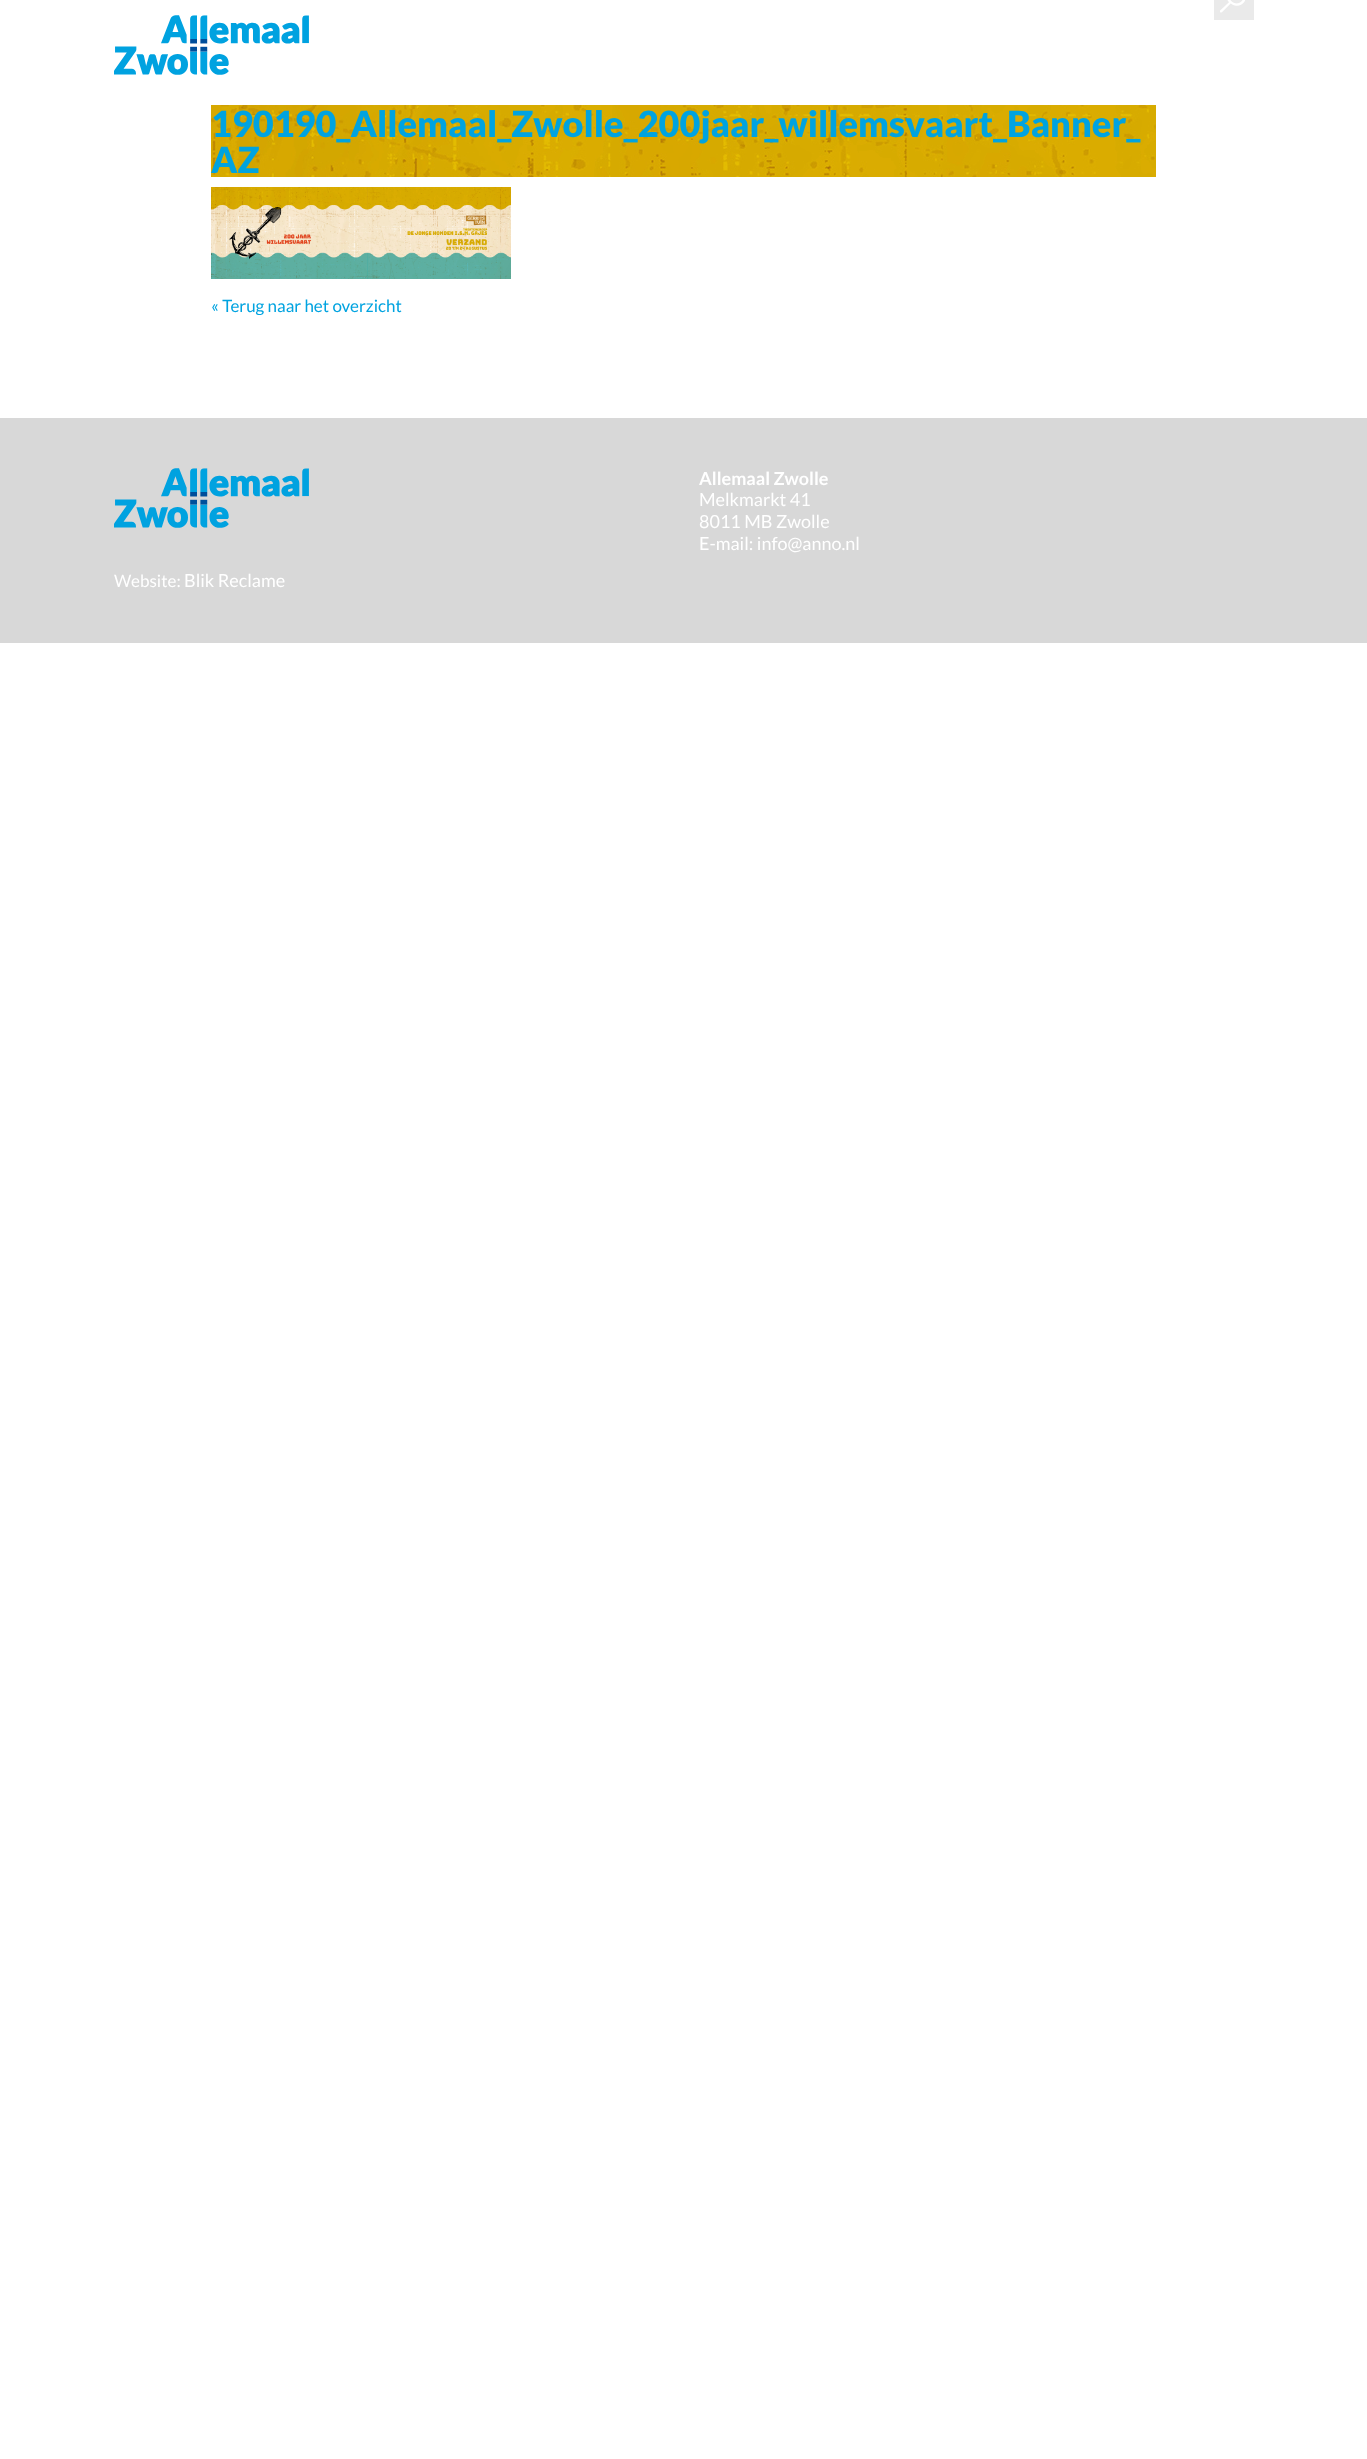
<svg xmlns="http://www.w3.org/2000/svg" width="1367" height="2459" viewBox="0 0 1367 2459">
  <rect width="100%" height="100%" fill="#fff"/>
  <path d="M1214 0h40v20H1214z" fill="#eaeaea"/>
  <image x="1220" y="0" width="25" height="13" href="img/1.png"/>
  <image x="114" y="15" width="195" height="60" href="img/2.png"/>
  <image x="211" y="105" width="945" height="72" href="img/3.png"/>
  <image x="211" y="187" width="300" height="92" href="img/4.png"/>
  <path d="M0 418h1367v225H0z" fill="#d8d8d8"/>
  <image x="114" y="468" width="195" height="60" href="img/5.png"/>
  <g font-family="Lato" font-size="36" font-weight="900" fill="#00a3e0">
    <text x="211" y="137">190190_Allemaal_Zwolle_200jaar_willemsvaart_Banner_</text>
    <text x="211" y="173">AZ</text>
  </g>
  <text x="211" y="312" font-family="Lato" font-size="17" fill="#00a3e0">« Terug naar het overzicht</text>
  <text x="699" y="485" font-family="Lato" font-size="18" font-weight="bold" fill="#fff">Allemaal Zwolle</text>
  <g font-family="Lato" font-size="18" fill="#fff">
    <text x="699" y="506">Melkmarkt 41</text>
    <text x="699" y="528">8011 MB Zwolle</text>
    <text x="699" y="550">E-mail: info@anno.nl</text>
  </g>
  <text x="114" y="587" font-family="Lato" font-size="17" fill="#fff">Website:</text>
  <text x="184" y="587" font-family="Lato" font-size="18" fill="#fff">Blik Reclame</text>
</svg>
